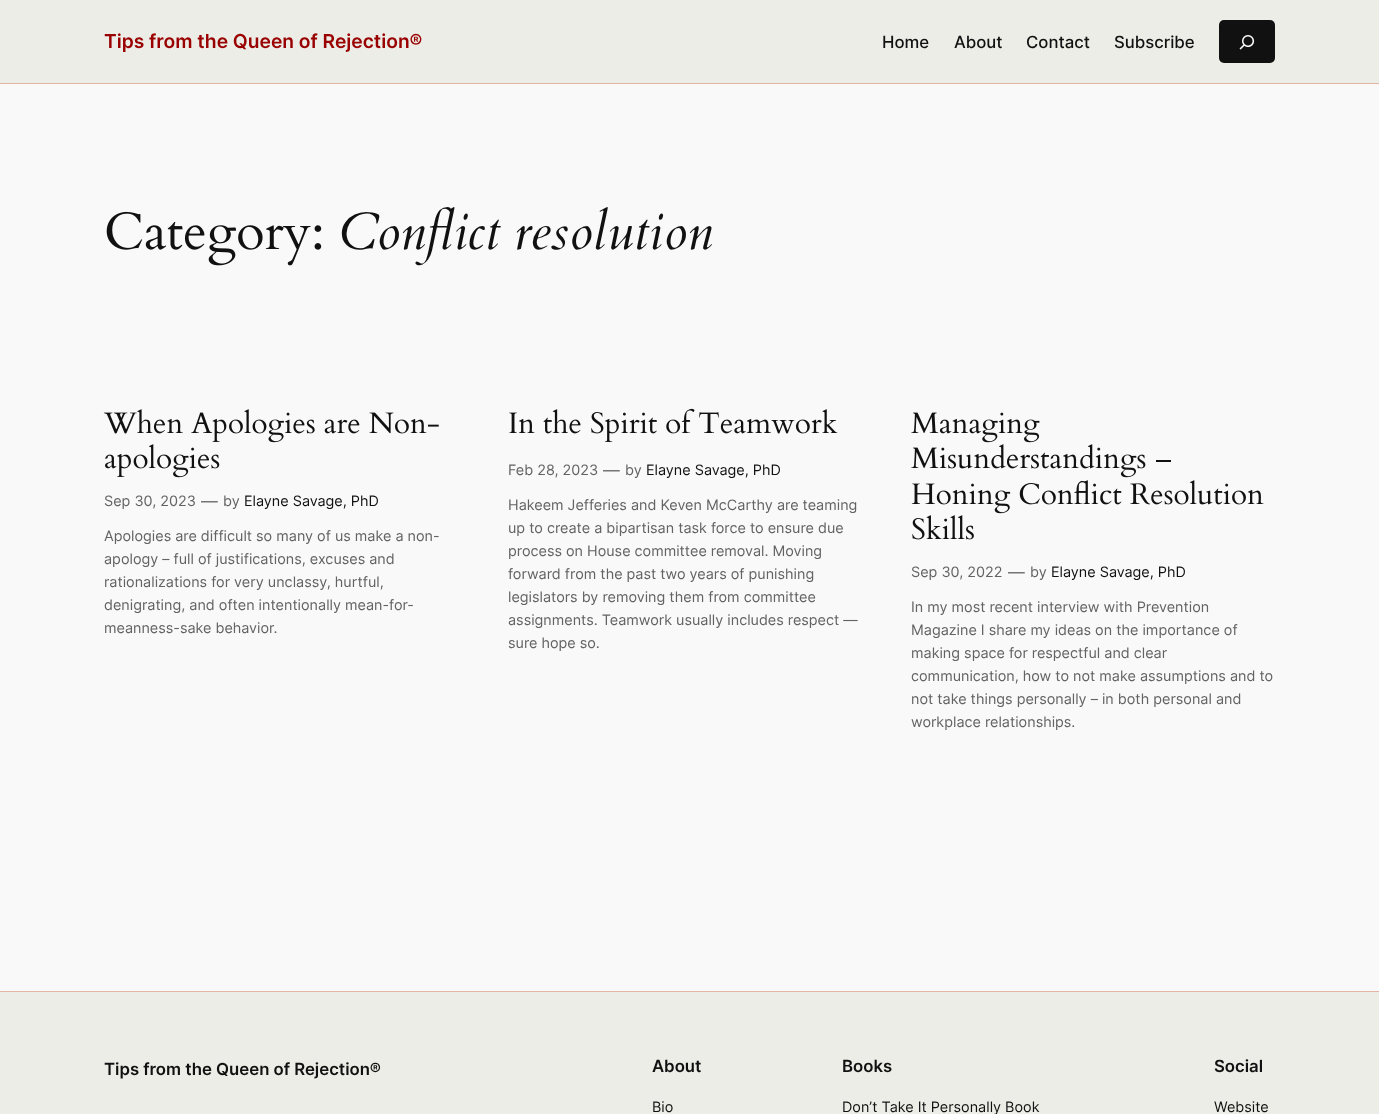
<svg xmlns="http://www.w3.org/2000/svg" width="1379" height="1114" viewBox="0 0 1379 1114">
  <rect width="100%" height="100%" fill="#f9f9f9"/>
  <path d="M0 0h1379v83H0z" fill="#edede8"/>
  <path d="M0 83h1379v1H0z" fill="#e5b5a3"/>
  <rect x="1219" y="20" width="56" height="43" rx="5" fill="#111"/>
  <image x="1239" y="35" width="16" height="15" href="img/1.png"/>
  <image x="106" y="211" width="216" height="55" href="img/2.png"/>
  <image x="103" y="409" width="336" height="34" href="img/3.png"/>
  <image x="105" y="444" width="115" height="34" href="img/4.png"/>
  <image x="509" y="408" width="329" height="34" href="img/5.png"/>
  <image x="911" y="412" width="129" height="31" href="img/6.png"/>
  <image x="911" y="444" width="235" height="34" href="img/7.png"/>
  <path d="M1156 460h15v2H1156z" fill="#111"/>
  <image x="911" y="480" width="353" height="34" href="img/8.png"/>
  <image x="912" y="515" width="62" height="25" href="img/9.png"/>
  <path d="M0 992h1379v122H0z" fill="#edede8"/>
  <path d="M0 991h1379v1H0z" fill="#e5b5a3"/>
  <text x="104" y="48" font-family="Inter" font-size="19.25" font-weight="600" fill="#900">Tips from the Queen of Rejection®</text>
  <g font-family="Inter" font-size="16.75" font-weight="500" fill="#111">
    <text x="882" y="48">Home</text>
    <text x="954" y="48">About</text>
    <text x="1026" y="48">Contact</text>
    <text x="1114" y="48">Subscribe</text>
  </g>
  <text x="339" y="249" font-family="Cardo" font-size="52.25" font-style="italic" fill="#111">Conflict resolution</text>
  <text x="104" y="506" font-family="Inter" font-size="14.4" fill="#636363">Sep 30, 2023</text>
  <text x="201" y="507" font-family="Inter" font-size="16.75" fill="#636363">—</text>
  <text x="223" y="506" font-family="Inter" font-size="14.4" fill="#636363">by</text>
  <text x="244" y="506" font-family="Inter" font-size="14.4" fill="#111">Elayne Savage, PhD</text>
  <g font-family="Inter" font-size="14.4" fill="#636363">
    <text x="104" y="541">Apologies are difficult so many of us make a non-</text>
    <text x="104" y="564">apology – full of justifications, excuses and</text>
    <text x="104" y="587">rationalizations for very unclassy, hurtful,</text>
    <text x="104" y="610">denigrating, and often intentionally mean-for-</text>
    <text x="104" y="633">meanness-sake behavior.</text>
    <text x="508" y="475">Feb 28, 2023</text>
  </g>
  <text x="603" y="476" font-family="Inter" font-size="16.75" fill="#636363">—</text>
  <text x="625" y="475" font-family="Inter" font-size="14.4" fill="#636363">by</text>
  <text x="646" y="475" font-family="Inter" font-size="14.4" fill="#111">Elayne Savage, PhD</text>
  <g font-family="Inter" font-size="14.4" fill="#636363">
    <text x="508" y="510">Hakeem Jefferies and Keven McCarthy are teaming</text>
    <text x="508" y="533">up to create a bipartisan task force to ensure due</text>
    <text x="508" y="556">process on House committee removal. Moving</text>
    <text x="508" y="579">forward from the past two years of punishing</text>
    <text x="508" y="602">legislators by removing them from committee</text>
    <text x="508" y="625">assignments. Teamwork usually includes respect —</text>
    <text x="508" y="648">sure hope so.</text>
    <text x="911" y="577">Sep 30, 2022</text>
  </g>
  <text x="1008" y="578" font-family="Inter" font-size="16.75" fill="#636363">—</text>
  <text x="1030" y="577" font-family="Inter" font-size="14.4" fill="#636363">by</text>
  <text x="1051" y="577" font-family="Inter" font-size="14.4" fill="#111">Elayne Savage, PhD</text>
  <g font-family="Inter" font-size="14.4" fill="#636363">
    <text x="911" y="612">In my most recent interview with Prevention</text>
    <text x="911" y="635">Magazine I share my ideas on the importance of</text>
    <text x="911" y="658">making space for respectful and clear</text>
    <text x="911" y="681">communication, how to not make assumptions and to</text>
    <text x="911" y="704">not take things personally – in both personal and</text>
    <text x="911" y="727">workplace relationships.</text>
  </g>
  <g font-family="Inter" font-size="16.75" font-weight="600" fill="#111">
    <text x="104" y="1075">Tips from the Queen of Rejection®</text>
    <text x="652" y="1072">About</text>
  </g>
  <text x="652" y="1112" font-family="Inter" font-size="14.4" fill="#111">Bio</text>
  <text x="842" y="1072" font-family="Inter" font-size="16.75" font-weight="600" fill="#111">Books</text>
  <text x="842" y="1112" font-family="Inter" font-size="14.4" fill="#111">Don’t Take It Personally Book</text>
  <text x="1214" y="1072" font-family="Inter" font-size="16.75" font-weight="600" fill="#111">Social</text>
  <text x="1214" y="1112" font-family="Inter" font-size="14.4" fill="#111">Website</text>
</svg>
